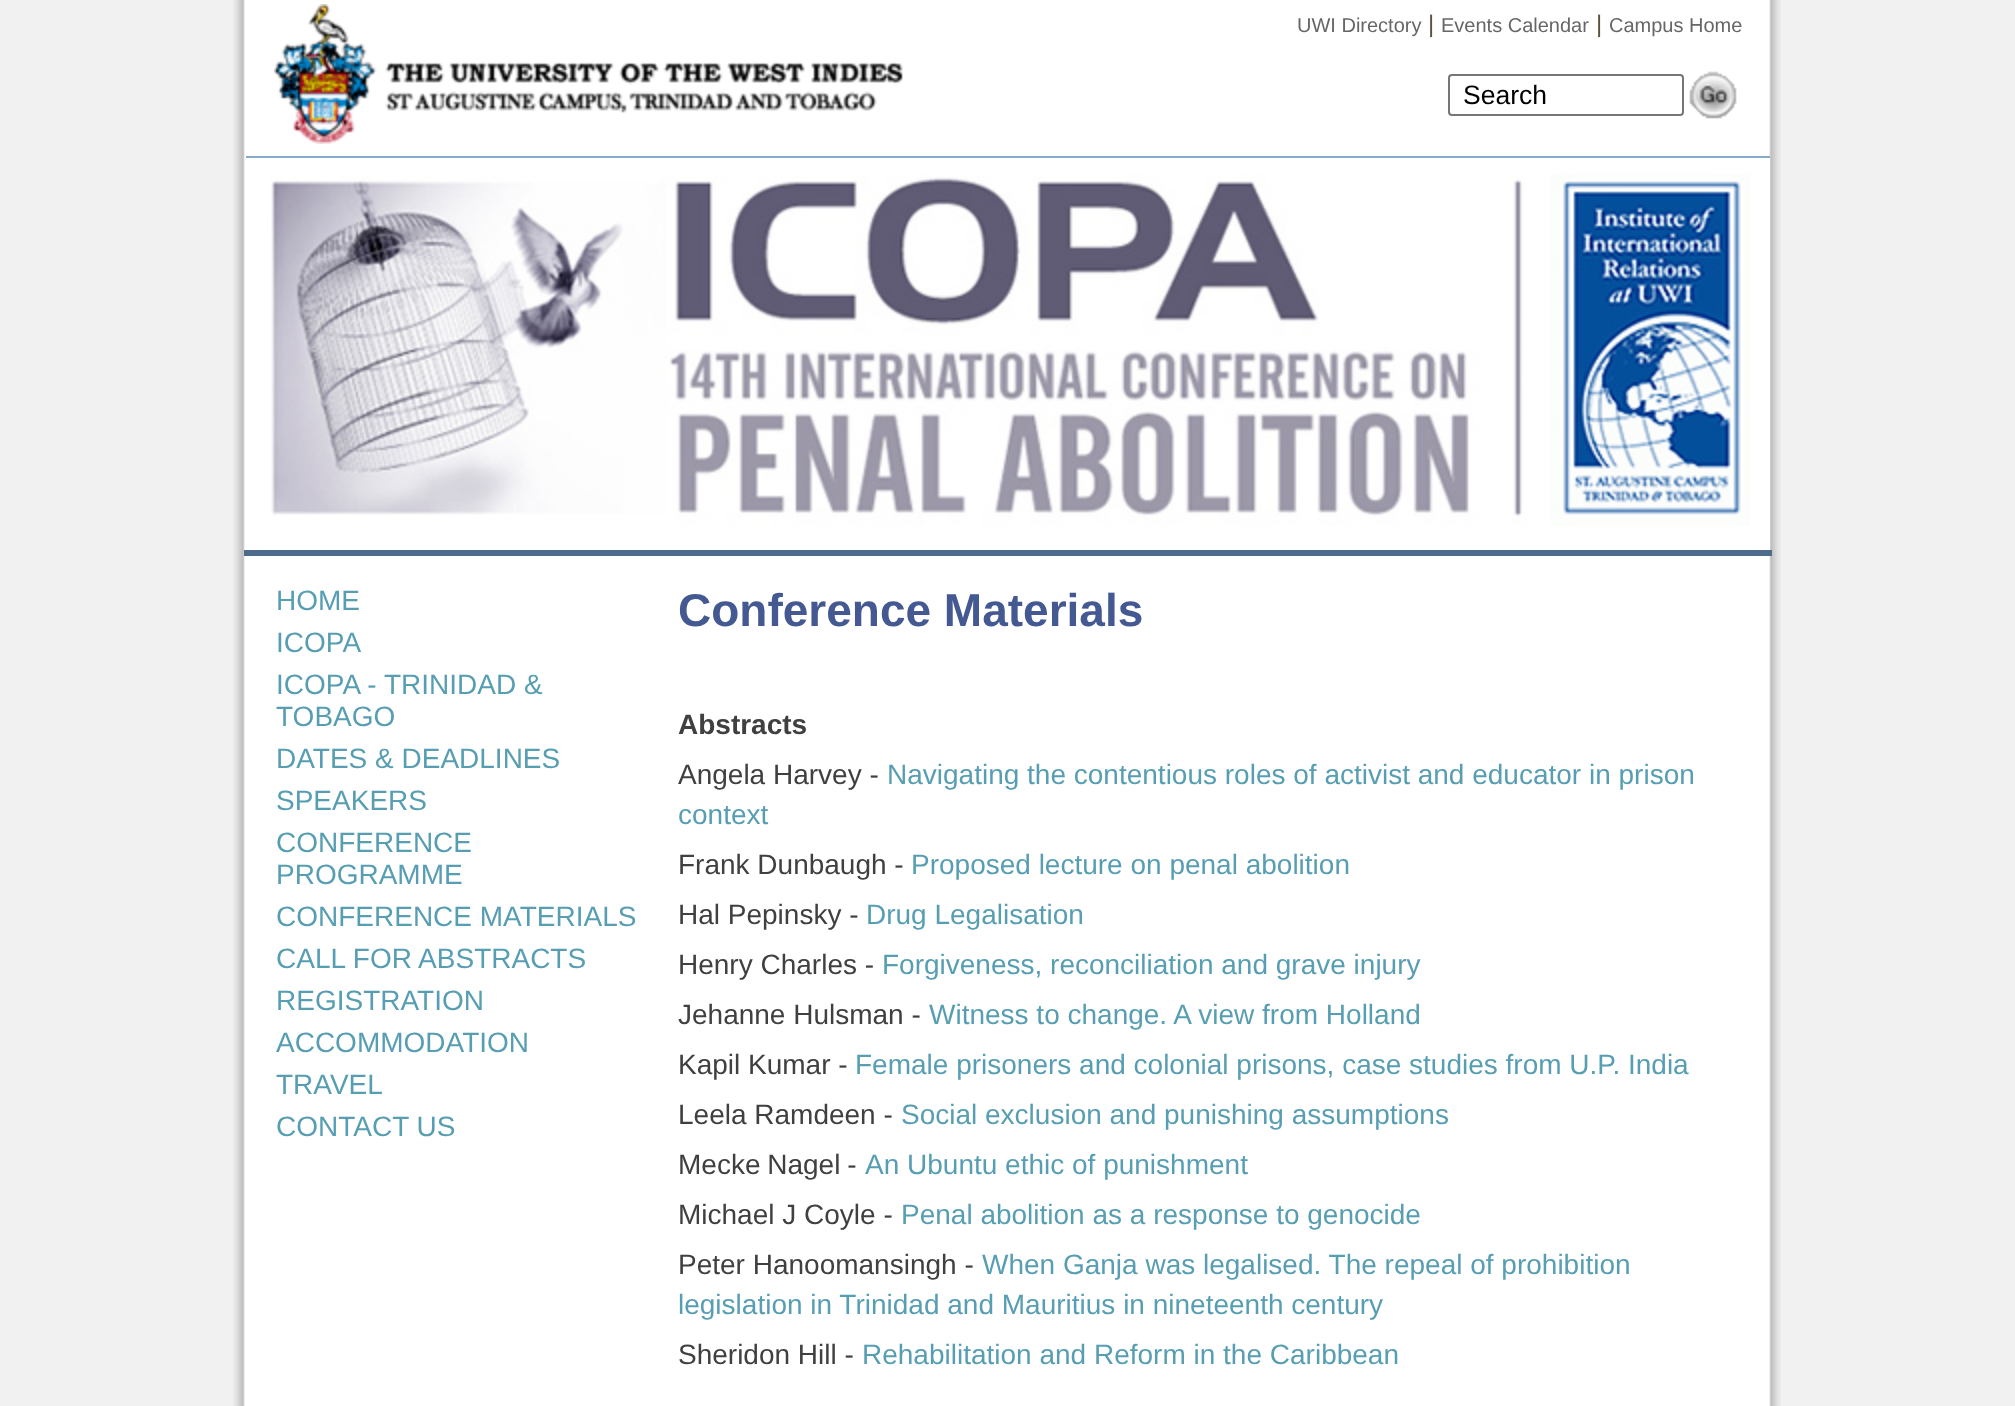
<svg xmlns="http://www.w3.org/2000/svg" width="2015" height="1406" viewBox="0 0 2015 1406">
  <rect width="100%" height="100%" fill="#f1f1f1"/>
  <image x="233" y="0" width="1548" height="1406" href="img/1.png"/>
  <image x="274" y="4" width="629" height="140" href="img/2.png"/>
  <rect x="1449" y="75" width="234" height="40" rx="3" fill="none" stroke="#767676" stroke-width="2"/>
  <image x="1689" y="71" width="48" height="48" href="img/3.png"/>
  <path d="M1769 158h1v392H1769z" fill="#fff"/>
  <path d="M246 156h1524v2H246z" fill="#87aacb"/>
  <image x="271" y="173" width="1479" height="353" href="img/4.png"/>
  <path d="M244 550h1528v6H244z" fill="#4d6b8a"/>
  <text x="1297" y="32" font-family="Liberation Sans" font-size="20" fill="#666">UWI Directory</text>
  <text x="1428" y="32" font-family="Liberation Sans" font-size="24" fill="#5a5340">|</text>
  <text x="1441" y="32" font-family="Liberation Sans" font-size="20" fill="#666">Events Calendar</text>
  <text x="1596" y="32" font-family="Liberation Sans" font-size="24" fill="#5a5340">|</text>
  <text x="1609" y="32" font-family="Liberation Sans" font-size="20" fill="#666">Campus Home</text>
  <text x="1463" y="104" font-family="Liberation Sans" font-size="26.5" fill="#000">Search</text>
  <g font-family="Liberation Sans" font-size="28" fill="#579eb3">
    <text x="276" y="610">HOME</text>
    <text x="276" y="652">ICOPA</text>
    <text x="276" y="694">ICOPA - TRINIDAD &amp;</text>
    <text x="276" y="726">TOBAGO</text>
    <text x="276" y="768">DATES &amp; DEADLINES</text>
    <text x="276" y="810">SPEAKERS</text>
    <text x="276" y="852">CONFERENCE</text>
    <text x="276" y="884">PROGRAMME</text>
    <text x="276" y="926">CONFERENCE MATERIALS</text>
    <text x="276" y="968">CALL FOR ABSTRACTS</text>
    <text x="276" y="1010">REGISTRATION</text>
    <text x="276" y="1052">ACCOMMODATION</text>
    <text x="276" y="1094">TRAVEL</text>
    <text x="276" y="1136">CONTACT US</text>
  </g>
  <text x="678" y="626" font-family="Liberation Sans" font-size="46" font-weight="bold" fill="#445891">Conference Materials</text>
  <text x="678" y="734" font-family="Liberation Sans" font-size="28" font-weight="bold" fill="#404040">Abstracts</text>
  <text x="678" y="784" font-family="Liberation Sans" font-size="28" fill="#404040">Angela Harvey -</text>
  <g font-family="Liberation Sans" font-size="28" fill="#579eb3">
    <text x="887" y="784">Navigating the contentious roles of activist and educator in prison</text>
    <text x="678" y="824">context</text>
  </g>
  <text x="678" y="874" font-family="Liberation Sans" font-size="28" fill="#404040">Frank Dunbaugh -</text>
  <text x="911" y="874" font-family="Liberation Sans" font-size="28" fill="#579eb3">Proposed lecture on penal abolition</text>
  <text x="678" y="924" font-family="Liberation Sans" font-size="28" fill="#404040">Hal Pepinsky -</text>
  <text x="866" y="924" font-family="Liberation Sans" font-size="28" fill="#579eb3">Drug Legalisation</text>
  <text x="678" y="974" font-family="Liberation Sans" font-size="28" fill="#404040">Henry Charles -</text>
  <text x="882" y="974" font-family="Liberation Sans" font-size="28" fill="#579eb3">Forgiveness, reconciliation and grave injury</text>
  <text x="678" y="1024" font-family="Liberation Sans" font-size="28" fill="#404040">Jehanne Hulsman -</text>
  <text x="929" y="1024" font-family="Liberation Sans" font-size="28" fill="#579eb3">Witness to change. A view from Holland</text>
  <text x="678" y="1074" font-family="Liberation Sans" font-size="28" fill="#404040">Kapil Kumar -</text>
  <text x="855" y="1074" font-family="Liberation Sans" font-size="28" fill="#579eb3">Female prisoners and colonial prisons, case studies from U.P. India</text>
  <text x="678" y="1124" font-family="Liberation Sans" font-size="28" fill="#404040">Leela Ramdeen -</text>
  <text x="901" y="1124" font-family="Liberation Sans" font-size="28" fill="#579eb3">Social exclusion and punishing assumptions</text>
  <text x="678" y="1174" word-spacing="-1" font-family="Liberation Sans" font-size="28" fill="#404040">Mecke Nagel -</text>
  <text x="865" y="1174" font-family="Liberation Sans" font-size="28" fill="#579eb3">An Ubuntu ethic of punishment</text>
  <text x="678" y="1224" font-family="Liberation Sans" font-size="28" fill="#404040">Michael J Coyle -</text>
  <text x="901" y="1224" font-family="Liberation Sans" font-size="28" fill="#579eb3">Penal abolition as a response to genocide</text>
  <text x="678" y="1274" font-family="Liberation Sans" font-size="28" fill="#404040">Peter Hanoomansingh -</text>
  <g font-family="Liberation Sans" font-size="28" fill="#579eb3">
    <text x="982" y="1274">When Ganja was legalised. The repeal of prohibition</text>
    <text x="678" y="1314">legislation in Trinidad and Mauritius in nineteenth century</text>
  </g>
  <text x="678" y="1364" font-family="Liberation Sans" font-size="28" fill="#404040">Sheridon Hill -</text>
  <text x="862" y="1364" font-family="Liberation Sans" font-size="28" fill="#579eb3">Rehabilitation and Reform in the Caribbean</text>
</svg>
